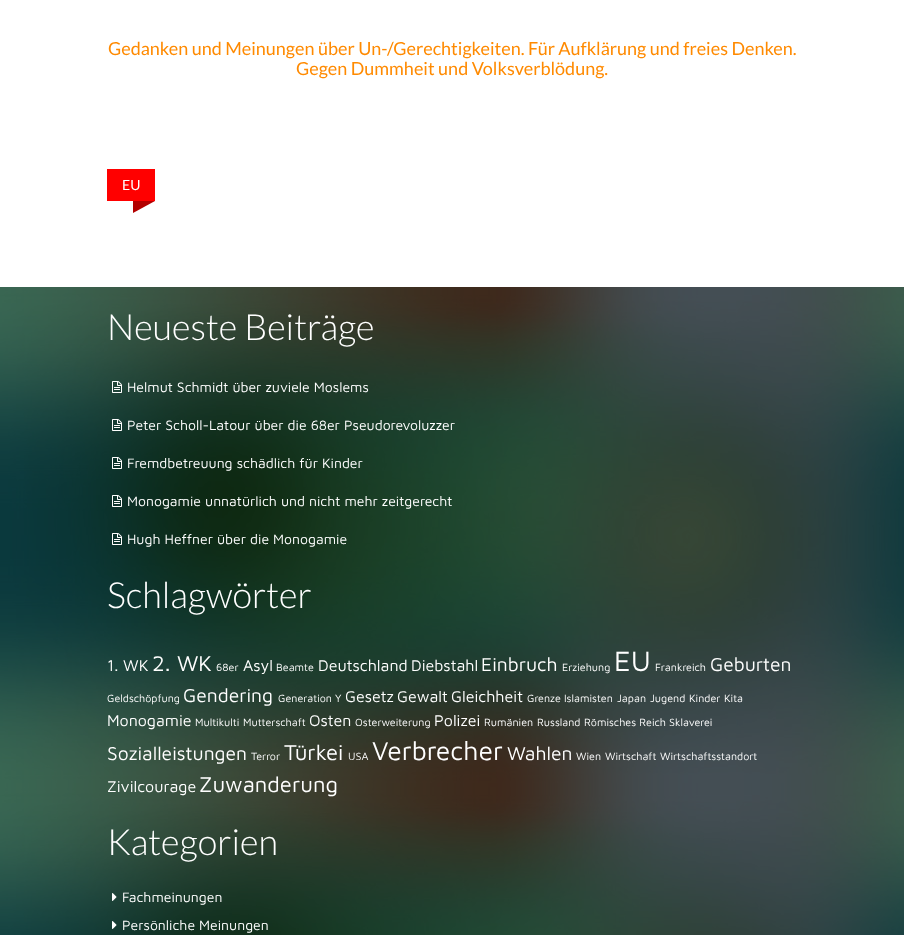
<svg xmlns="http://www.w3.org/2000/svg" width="904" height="935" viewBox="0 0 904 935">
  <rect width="100%" height="100%" fill="#fff"/>
  <path d="M107 169h48v32H107z" fill="#f00"/>
  <path d="M133 201H155L133 213Z" fill="#b30000"/>
  <image x="0" y="287" width="904" height="648" href="img/1.png"/>
  <image x="112" y="381" width="10" height="12" href="img/2.png"/>
  <image x="112" y="419" width="10" height="12" href="img/3.png"/>
  <image x="112" y="457" width="10" height="12" href="img/4.png"/>
  <image x="112" y="495" width="10" height="12" href="img/5.png"/>
  <image x="112" y="533" width="10" height="12" href="img/6.png"/>
  <image x="112" y="893" width="5" height="8" href="img/7.png"/>
  <image x="112" y="921" width="5" height="8" href="img/8.png"/>
  <g font-family="Lato" font-size="18" fill="#ff8a00">
    <text x="108" y="55">Gedanken und Meinungen über Un-/Gerechtigkeiten. Für Aufklärung und freies Denken.</text>
    <text x="296" y="75">Gegen Dummheit und Volksverblödung.</text>
  </g>
  <text x="122" y="190" font-family="Lato" font-size="14" fill="#fff">EU</text>
  <text x="107" y="340" font-family="Lato" font-size="36" font-weight="300" fill="#fff">Neueste Beiträge</text>
  <g font-family="Maven Pro" font-size="14" fill="#fff">
    <text x="127" y="392">Helmut Schmidt über zuviele Moslems</text>
    <text x="127" y="430">Peter Scholl-Latour über die 68er Pseudorevoluzzer</text>
    <text x="127" y="468">Fremdbetreuung schädlich für Kinder</text>
    <text x="127" y="506">Monogamie unnatürlich und nicht mehr zeitgerecht</text>
    <text x="127" y="544">Hugh Heffner über die Monogamie</text>
  </g>
  <text x="107" y="608" font-family="Lato" font-size="36" font-weight="300" fill="#fff">Schlagwörter</text>
  <text x="107" y="671" font-family="Maven Pro" font-size="16" fill="#fff">1. WK</text>
  <text x="152" y="671" font-family="Maven Pro" font-size="22" fill="#fff">2. WK</text>
  <text x="216" y="671" font-family="Maven Pro" font-size="10.75" fill="#fff">68er</text>
  <text x="243" y="671" font-family="Maven Pro" font-size="16" fill="#fff">Asyl</text>
  <text x="276" y="671" font-family="Maven Pro" font-size="10.75" fill="#fff">Beamte</text>
  <g font-family="Maven Pro" font-size="16" fill="#fff">
    <text x="318" y="671">Deutschland</text>
    <text x="411" y="671">Diebstahl</text>
  </g>
  <text x="481" y="671" font-family="Maven Pro" font-size="19.25" fill="#fff">Einbruch</text>
  <text x="562" y="671" font-family="Maven Pro" font-size="10.75" fill="#fff">Erziehung</text>
  <text x="614" y="671" font-family="Maven Pro" font-size="29" fill="#fff">EU</text>
  <text x="655" y="671" font-family="Maven Pro" font-size="10.75" fill="#fff">Frankreich</text>
  <text x="710" y="671" font-family="Maven Pro" font-size="19.25" fill="#fff">Geburten</text>
  <text x="107" y="702" font-family="Maven Pro" font-size="10.75" fill="#fff">Geldschöpfung</text>
  <text x="183" y="702" font-family="Maven Pro" font-size="19.25" fill="#fff">Gendering</text>
  <text x="278" y="702" font-family="Maven Pro" font-size="10.75" fill="#fff">Generation Y</text>
  <g font-family="Maven Pro" font-size="16" fill="#fff">
    <text x="345" y="702">Gesetz</text>
    <text x="397" y="702">Gewalt</text>
    <text x="451" y="702">Gleichheit</text>
  </g>
  <g font-family="Maven Pro" font-size="10.75" fill="#fff">
    <text x="527" y="702">Grenze</text>
    <text x="564" y="702">Islamisten</text>
    <text x="617" y="702">Japan</text>
    <text x="650" y="702">Jugend</text>
    <text x="689" y="702">Kinder</text>
    <text x="724" y="702">Kita</text>
  </g>
  <text x="107" y="726" font-family="Maven Pro" font-size="16" fill="#fff">Monogamie</text>
  <g font-family="Maven Pro" font-size="10.75" fill="#fff">
    <text x="195" y="726">Multikulti</text>
    <text x="243" y="726">Mutterschaft</text>
  </g>
  <text x="309" y="726" font-family="Maven Pro" font-size="16" fill="#fff">Osten</text>
  <text x="355" y="726" font-family="Maven Pro" font-size="10.75" fill="#fff">Osterweiterung</text>
  <text x="434" y="726" font-family="Maven Pro" font-size="16" fill="#fff">Polizei</text>
  <g font-family="Maven Pro" font-size="10.75" fill="#fff">
    <text x="484" y="726">Rumänien</text>
    <text x="537" y="726">Russland</text>
    <text x="584" y="726">Römisches Reich</text>
    <text x="669" y="726">Sklaverei</text>
  </g>
  <text x="107" y="760" font-family="Maven Pro" font-size="19.25" fill="#fff">Sozialleistungen</text>
  <text x="251" y="760" font-family="Maven Pro" font-size="10.75" fill="#fff">Terror</text>
  <text x="284" y="760" font-family="Maven Pro" font-size="22" fill="#fff">Türkei</text>
  <text x="348" y="760" font-family="Maven Pro" font-size="10.75" fill="#fff">USA</text>
  <text x="372" y="760" font-family="Maven Pro" font-size="26.5" fill="#fff">Verbrecher</text>
  <text x="507" y="760" font-family="Maven Pro" font-size="19.25" fill="#fff">Wahlen</text>
  <g font-family="Maven Pro" font-size="10.75" fill="#fff">
    <text x="576" y="760">Wien</text>
    <text x="605" y="760">Wirtschaft</text>
    <text x="660" y="760">Wirtschaftsstandort</text>
  </g>
  <text x="107" y="792" font-family="Maven Pro" font-size="16" fill="#fff">Zivilcourage</text>
  <text x="199" y="792" font-family="Maven Pro" font-size="22" fill="#fff">Zuwanderung</text>
  <text x="107" y="855" font-family="Lato" font-size="36" font-weight="300" fill="#fff">Kategorien</text>
  <g font-family="Maven Pro" font-size="14" fill="#fff">
    <text x="122" y="902">Fachmeinungen</text>
    <text x="122" y="930">Persönliche Meinungen</text>
  </g>
</svg>
